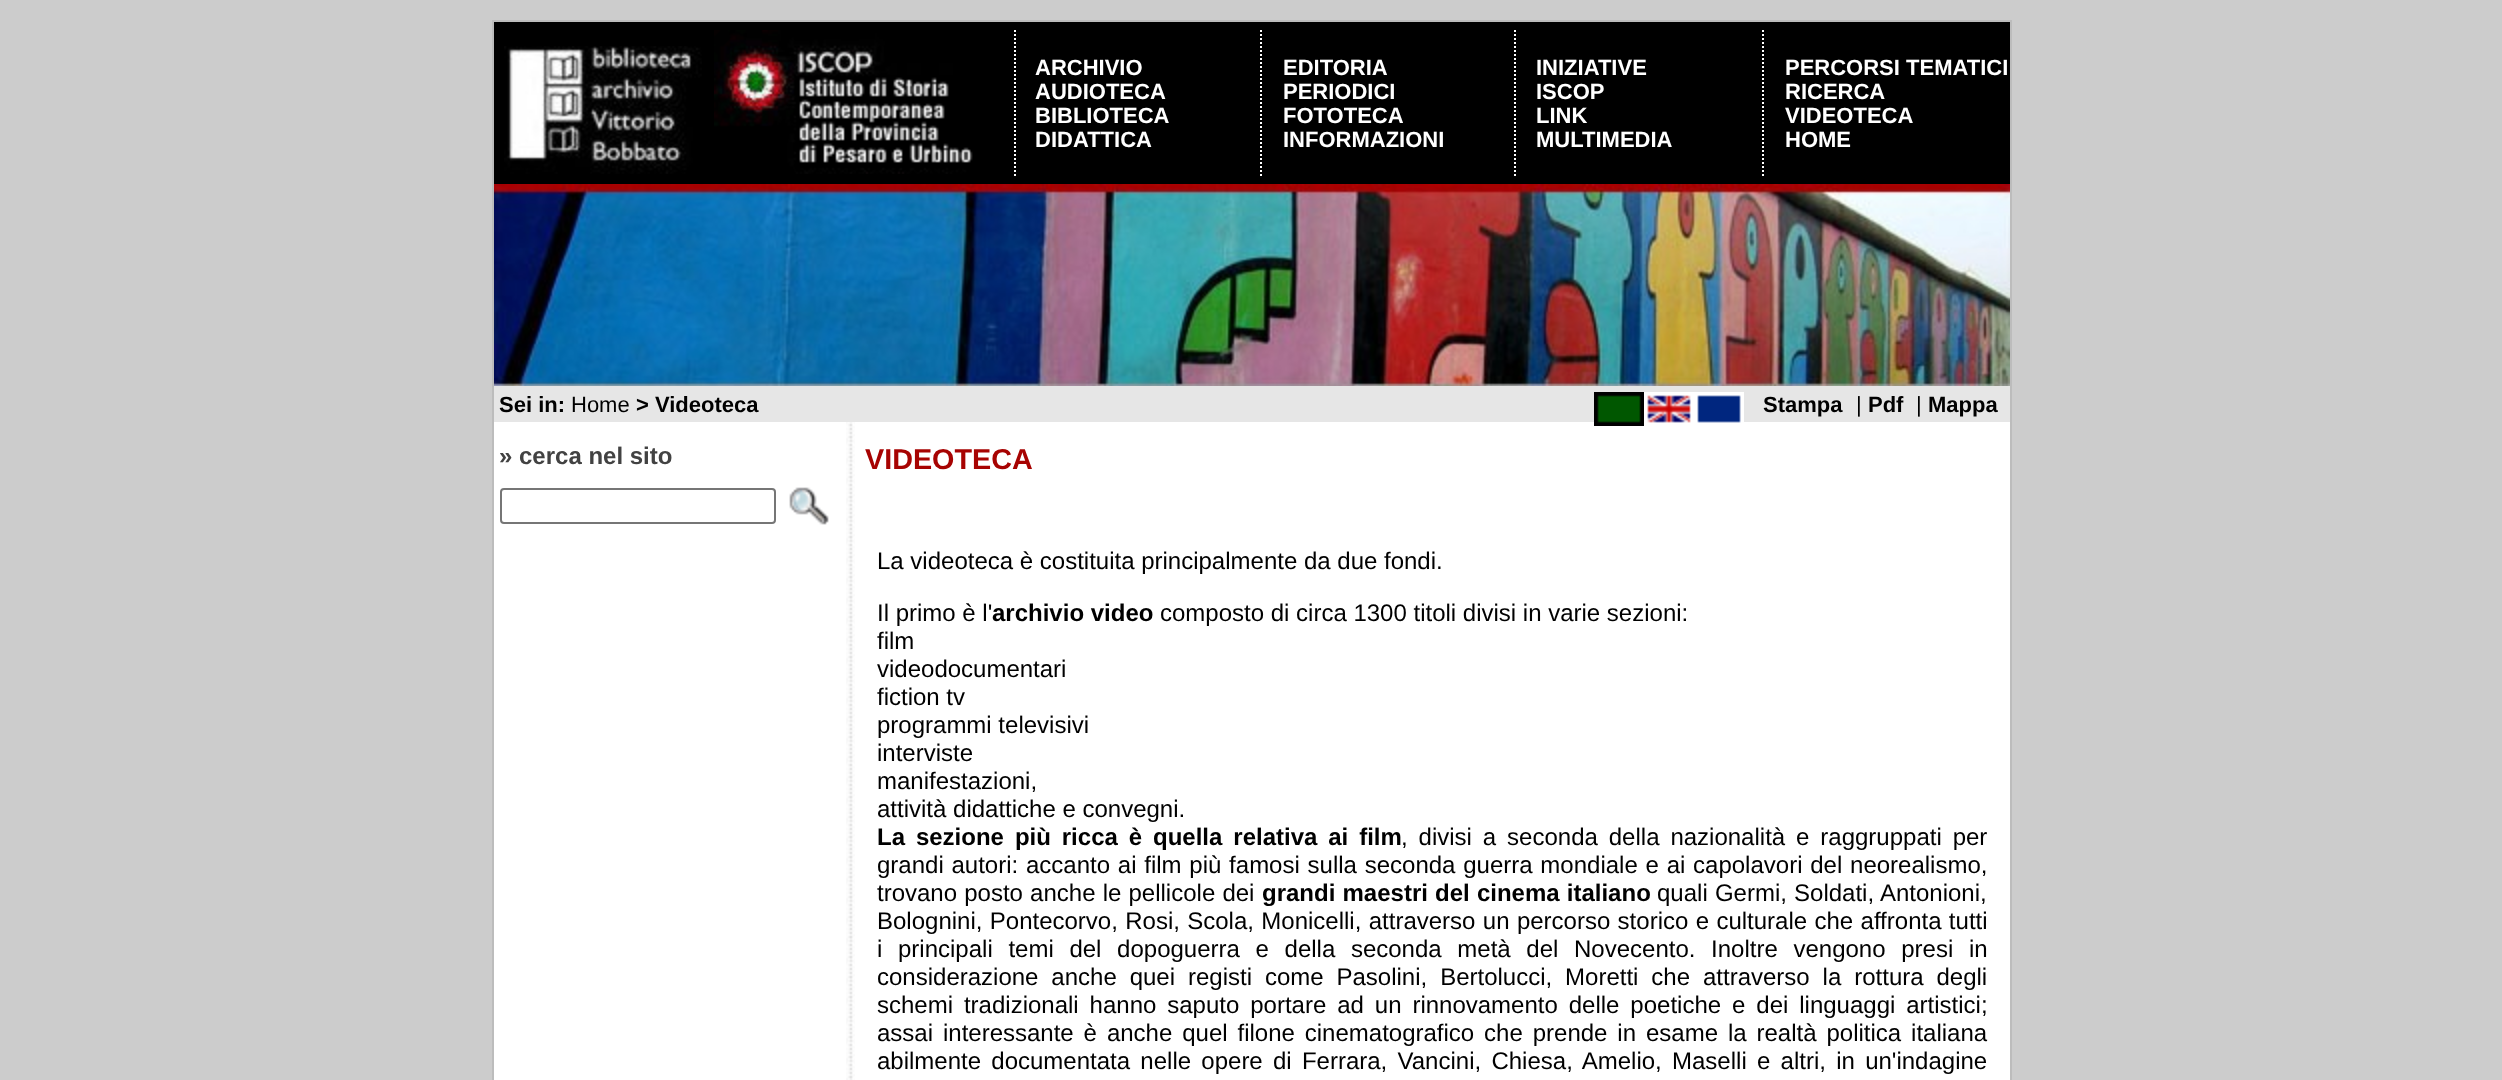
<svg xmlns="http://www.w3.org/2000/svg" width="2502" height="1080" viewBox="0 0 2502 1080">
  <rect width="100%" height="100%" fill="#ccc"/>
  <path d="M494 422h1516v658H494z" fill="#fff"/>
  <image x="846" y="422" width="9" height="658" href="img/1.png"/>
  <path d="M493 21h1518v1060H493z" fill="none" stroke="#bcbcbc" stroke-width="2"/>
  <path d="M494 22h1516v162H494z" fill="#000"/>
  <image x="504" y="46" width="198" height="128" href="img/2.png"/>
  <path d="M1015 30V176" fill="none" stroke="#fff" stroke-width="2" stroke-dasharray="2 2"/>
  <image x="714" y="30" width="259" height="144" href="img/3.png"/>
  <path d="M1261 30V176" fill="none" stroke="#fff" stroke-width="2" stroke-dasharray="2 2"/>
  <path d="M1515 30V176" fill="none" stroke="#fff" stroke-width="2" stroke-dasharray="2 2"/>
  <path d="M1763 30V176" fill="none" stroke="#fff" stroke-width="2" stroke-dasharray="2 2"/>
  <image x="494" y="184" width="1516" height="202" href="img/4.png"/>
  <path d="M494 386h1516v36H494z" fill="#e6e6e6"/>
  <image x="1594" y="392" width="50" height="34" href="img/5.png"/>
  <image x="1644" y="392" width="50" height="31" href="img/6.png"/>
  <image x="1694" y="392" width="50" height="31" href="img/7.png"/>
  <rect x="501" y="489" width="274" height="34" rx="3" fill="none" stroke="#767676" stroke-width="2"/>
  <image x="789" y="487" width="40" height="38" href="img/8.png"/>
  <g font-family="Liberation Sans" font-size="22" font-weight="bold" fill="#fff">
    <text x="1035" y="75">ARCHIVIO</text>
    <text x="1035" y="99">AUDIOTECA</text>
    <text x="1035" y="123">BIBLIOTECA</text>
    <text x="1035" y="147">DIDATTICA</text>
    <text x="1283" y="75">EDITORIA</text>
    <text x="1283" y="99">PERIODICI</text>
    <text x="1283" y="123">FOTOTECA</text>
    <text x="1283" y="147">INFORMAZIONI</text>
    <text x="1536" y="75">INIZIATIVE</text>
    <text x="1536" y="99">ISCOP</text>
    <text x="1536" y="123">LINK</text>
    <text x="1536" y="147">MULTIMEDIA</text>
    <text x="1785" y="75">PERCORSI TEMATICI</text>
    <text x="1785" y="99">RICERCA</text>
    <text x="1785" y="123">VIDEOTECA</text>
    <text x="1785" y="147">HOME</text>
  </g>
  <text x="499" y="412" font-family="Liberation Sans" font-size="22" font-weight="bold" fill="#000">Sei in:</text>
  <text x="571" y="412" font-family="Liberation Sans" font-size="22" fill="#000">Home</text>
  <g font-family="Liberation Sans" font-size="22" font-weight="bold" fill="#000">
    <text x="636" y="412">&gt; Videoteca</text>
    <text x="1763" y="412">Stampa</text>
  </g>
  <text x="1856" y="412" font-family="Liberation Sans" font-size="22" fill="#000">|</text>
  <text x="1868" y="412" font-family="Liberation Sans" font-size="22" font-weight="bold" fill="#000">Pdf</text>
  <text x="1916" y="412" font-family="Liberation Sans" font-size="22" fill="#000">|</text>
  <text x="1928" y="412" font-family="Liberation Sans" font-size="22" font-weight="bold" fill="#000">Mappa</text>
  <text x="499" y="464" font-family="Liberation Sans" font-size="24" font-weight="bold" fill="#424242">» cerca nel sito</text>
  <text x="865" y="469" font-family="Liberation Sans" font-size="28.75" font-weight="bold" fill="#a70302">VIDEOTECA</text>
  <g font-family="Liberation Sans" font-size="24" fill="#000">
    <text x="877" y="569">La videoteca è costituita principalmente da due fondi.</text>
    <text x="877" y="621">Il primo è l'</text>
  </g>
  <text x="992" y="621" font-family="Liberation Sans" font-size="24" font-weight="bold" fill="#000">archivio video</text>
  <g font-family="Liberation Sans" font-size="24" fill="#000">
    <text x="1160" y="621">composto di circa 1300 titoli divisi in varie sezioni:</text>
    <text x="877" y="649">film</text>
    <text x="877" y="677">videodocumentari</text>
    <text x="877" y="705">fiction tv</text>
    <text x="877" y="733">programmi televisivi</text>
    <text x="877" y="761">interviste</text>
    <text x="877" y="789">manifestazioni,</text>
    <text x="877" y="817">attività didattiche e convegni.</text>
  </g>
  <text x="877" y="845" word-spacing="4.25" font-family="Liberation Sans" font-size="24" font-weight="bold" fill="#000">La sezione più ricca è quella relativa ai film</text>
  <g font-family="Liberation Sans" font-size="24" fill="#000">
    <text x="1401" y="845" word-spacing="4.25">, divisi a seconda della nazionalità e raggruppati per</text>
    <text x="877" y="873" word-spacing="1.1">grandi autori: accanto ai film più famosi sulla seconda guerra mondiale e ai capolavori del neorealismo,</text>
    <text x="877" y="901" word-spacing="0.5">trovano posto anche le pellicole dei</text>
  </g>
  <text x="1262" y="901" word-spacing="0.5" font-family="Liberation Sans" font-size="24" font-weight="bold" fill="#000">grandi maestri del cinema italiano</text>
  <g font-family="Liberation Sans" font-size="24" fill="#000">
    <text x="1657" y="901" word-spacing="0.5">quali Germi, Soldati, Antonioni,</text>
    <text x="877" y="929" word-spacing="0.7">Bolognini, Pontecorvo, Rosi, Scola, Monicelli, attraverso un percorso storico e culturale che affronta tutti</text>
    <text x="877" y="957" word-spacing="9">i principali temi del dopoguerra e della seconda metà del Novecento. Inoltre vengono presi in</text>
    <text x="877" y="985" word-spacing="6.25">considerazione anche quei registi come Pasolini, Bertolucci, Moretti che attraverso la rottura degli</text>
    <text x="877" y="1013" word-spacing="4.25">schemi tradizionali hanno saputo portare ad un rinnovamento delle poetiche e dei linguaggi artistici;</text>
    <text x="877" y="1041" word-spacing="3.25">assai interessante è anche quel filone cinematografico che prende in esame la realtà politica italiana</text>
    <text x="877" y="1069" word-spacing="3.6">abilmente documentata nelle opere di Ferrara, Vancini, Chiesa, Amelio, Maselli e altri, in un'indagine</text>
  </g>
</svg>
